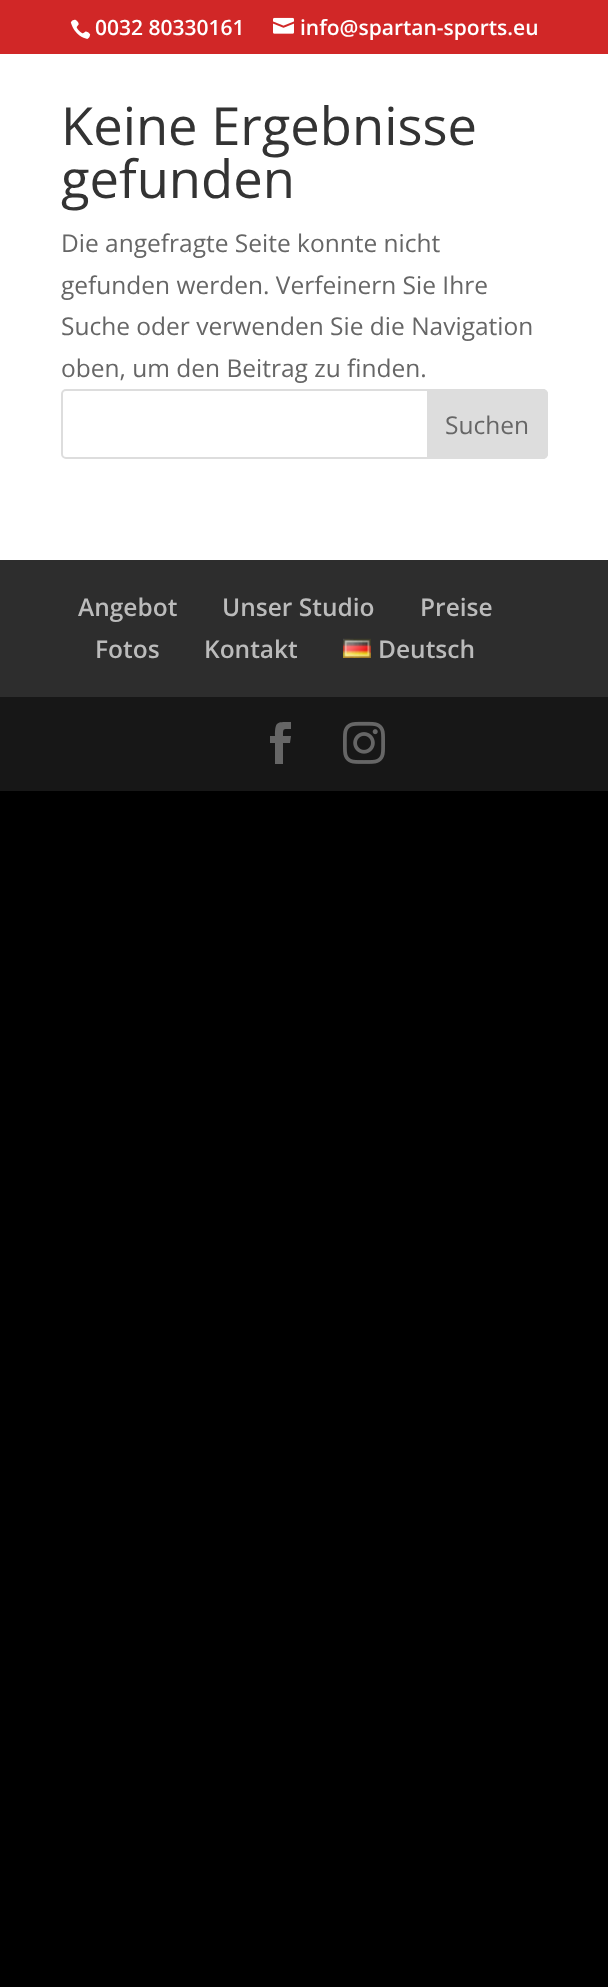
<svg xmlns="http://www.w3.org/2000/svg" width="608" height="1987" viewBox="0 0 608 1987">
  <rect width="100%" height="100%" fill="#000"/>
  <path d="M0 0h608v54H0z" fill="#d12727"/>
  <image x="70" y="19" width="21" height="20" href="img/1.png"/>
  <image x="273" y="17" width="21" height="17" href="img/2.png"/>
  <path d="M0 54h608v506H0z" fill="#fff"/>
  <rect x="62" y="390" width="485" height="68" rx="4" fill="none" stroke="#ddd" stroke-width="2"/>
  <path d="M428 390H543C545 390 547 392 547 394V454C547 456 545 458 543 458H428Z" fill="#ddd" stroke="#ddd" stroke-width="2"/>
  <path d="M0 560h608v137H0z" fill="#2d2d2d"/>
  <image x="343" y="638" width="28" height="20" href="img/3.png"/>
  <path d="M0 697h608v94H0z" fill="#171717"/>
  <path d="M275 764H283V743H290L291 736H283C283 728 283 729 291 729V722C277 722 275 721 275 736H270V743H275Z" fill="#666"/>
  <image x="343" y="721" width="42" height="43" href="img/4.png"/>
  <g font-family="Open Sans" font-size="21" font-weight="600" fill="#fff">
    <text x="95" y="35">0032 80330161</text>
    <text x="300" y="35">info@spartan-sports.eu</text>
  </g>
  <g font-family="Open Sans" font-size="52.5" fill="#333">
    <text x="61" y="145">Keine Ergebnisse</text>
    <text x="61" y="198">gefunden</text>
  </g>
  <g font-family="Open Sans" font-size="24.5" fill="#666">
    <text x="61" y="252">Die angefragte Seite konnte nicht</text>
    <text x="61" y="294">gefunden werden. Verfeinern Sie Ihre</text>
    <text x="61" y="335">Suche oder verwenden Sie die Navigation</text>
    <text x="61" y="377">oben, um den Beitrag zu finden.</text>
    <text x="445" y="434">Suchen</text>
  </g>
  <g font-family="Open Sans" font-size="24.5" font-weight="600" fill="#bbb">
    <text x="78" y="616">Angebot</text>
    <text x="222" y="616">Unser Studio</text>
    <text x="420" y="616">Preise</text>
    <text x="95" y="658">Fotos</text>
    <text x="204" y="658">Kontakt</text>
    <text x="378" y="658">Deutsch</text>
  </g>
</svg>
